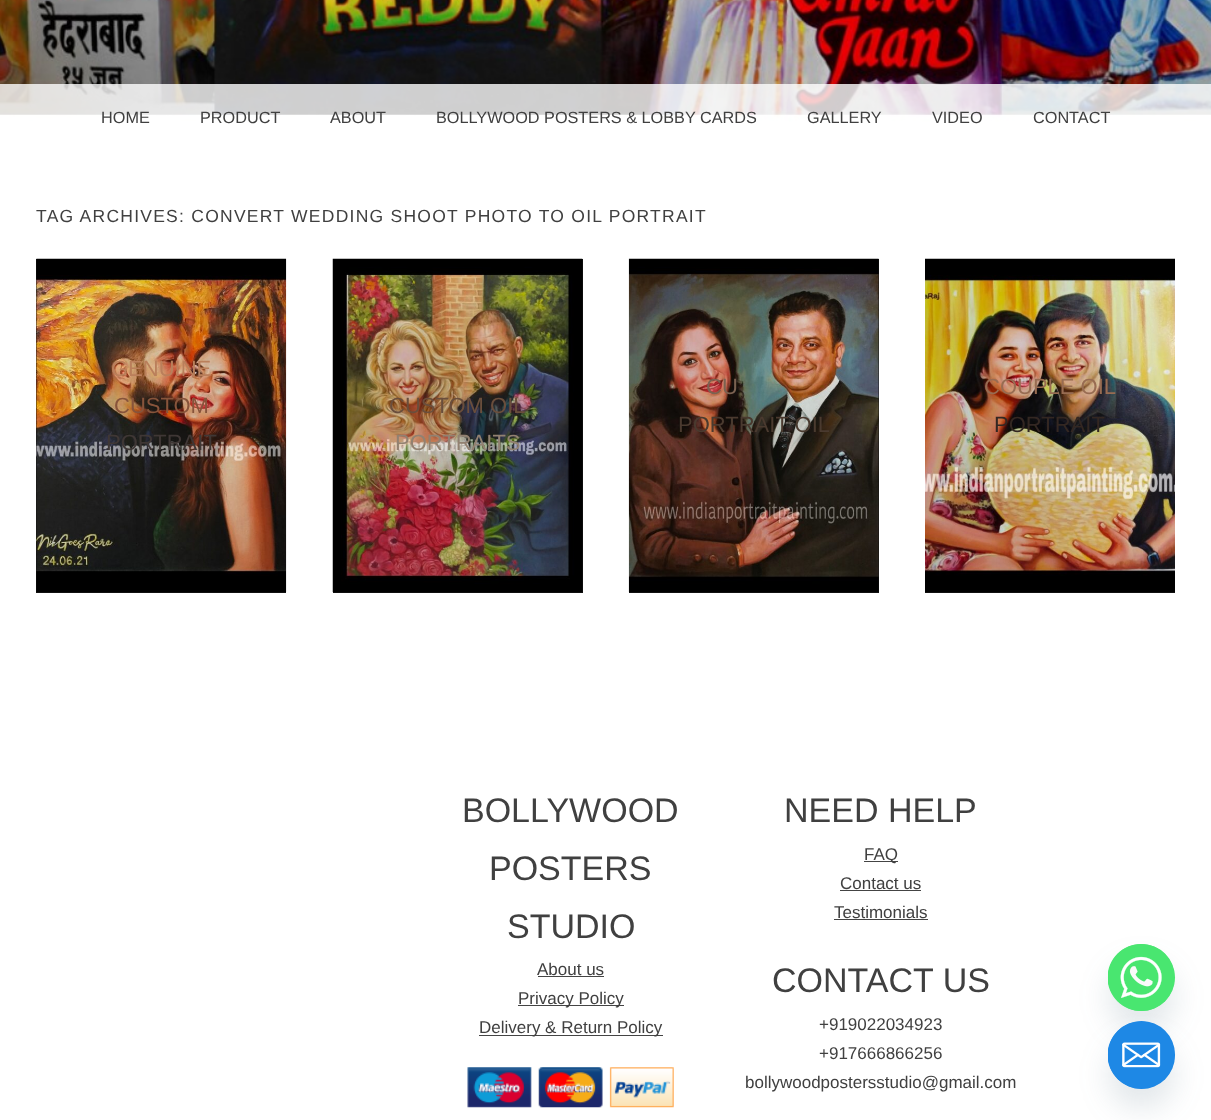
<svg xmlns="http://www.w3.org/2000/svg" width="1211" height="1120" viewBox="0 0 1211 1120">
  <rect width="100%" height="100%" fill="#fff"/>
  <image x="0" y="0" width="1211" height="122" href="img/1.png"/>
  <path d="M0 84h1211v38H0z" fill="#ffffffcc"/>
  <path d="M36 259h250v334H36z" fill="#111"/>
  <image x="36" y="258" width="251" height="334" href="img/2.png"/>
  <path d="M333 259h250v334H333z" fill="#111"/>
  <image x="332" y="258" width="251" height="335" href="img/3.png"/>
  <path d="M629 259h250v334H629z" fill="#111"/>
  <image x="628" y="258" width="251" height="334" href="img/4.png"/>
  <path d="M925 592h250v1H925z" fill="#111"/>
  <image x="925" y="258" width="250" height="334" href="img/5.png"/>
  <path d="M538 976h66v1H538z" fill="#444"/>
  <path d="M518 1005h106v1H518z" fill="#444"/>
  <path d="M479 1035h184v1H479z" fill="#444"/>
  <image x="467" y="1067" width="207" height="41" href="img/6.png"/>
  <path d="M864 861h34v1H864z" fill="#444"/>
  <path d="M840 890h81v1H840z" fill="#444"/>
  <path d="M834 919h94v1H834z" fill="#444"/>
  <rect x="1108" y="964" width="67" height="67" rx="33.5" fill="#49687e29" filter="blur(15px)"/>
  <circle cx="1141.5" cy="977.5" r="33.5" fill="#49e670"/>
  <image x="1108" y="944" width="67" height="67" href="img/7.png"/>
  <rect x="1108" y="1041" width="67" height="68" rx="33.5" fill="#49687e29" filter="blur(15px)"/>
  <rect x="1108" y="1021" width="67" height="68" rx="33.5" fill="#1e88e5"/>
  <image x="1108" y="1021" width="67" height="68" href="img/8.png"/>
  <g font-family="Liberation Sans" font-size="16.25" fill="#404040">
    <text x="101" y="123">HOME</text>
    <text x="200" y="123">PRODUCT</text>
    <text x="330" y="123">ABOUT</text>
    <text x="436" y="123">BOLLYWOOD POSTERS &amp; LOBBY CARDS</text>
    <text x="807" y="123">GALLERY</text>
    <text x="932" y="123">VIDEO</text>
    <text x="1033" y="123">CONTACT</text>
  </g>
  <text x="36" y="222" font-family="Liberation Sans" font-size="17.5" letter-spacing="1.25" fill="#404040">TAG ARCHIVES: CONVERT WEDDING SHOOT PHOTO TO OIL PORTRAIT</text>
  <text x="111" y="376" font-family="Liberation Sans" font-size="22" fill="#ba7f5b">GENUINE</text>
  <text x="114" y="413" font-family="Liberation Sans" font-size="22" fill="#87543b">CUSTOM</text>
  <text x="106" y="450" font-family="Liberation Sans" font-size="22" fill="#3f3735">PORTRAIT</text>
  <text x="389" y="413" font-family="Liberation Sans" font-size="22" fill="#6a4e3c">CUSTOM OIL</text>
  <text x="395" y="450" font-family="Liberation Sans" font-size="22" fill="#928171">PORTRAITS</text>
  <text x="706" y="394" font-family="Liberation Sans" font-size="22" fill="#7b6251">CU</text>
  <text x="678" y="432" font-family="Liberation Sans" font-size="22" fill="#4a3a2f">PORTRAIT OIL</text>
  <text x="984" y="394" font-family="Liberation Sans" font-size="22" fill="#986c52">COUPLE OIL</text>
  <text x="994" y="432" font-family="Liberation Sans" font-size="22" fill="#332722">PORTRAIT</text>
  <g font-family="Liberation Sans" font-size="34" fill="#404040">
    <text x="462" y="822">BOLLYWOOD</text>
    <text x="489" y="880">POSTERS</text>
    <text x="507" y="938">STUDIO</text>
  </g>
  <g font-family="Liberation Sans" font-size="17" fill="#404040">
    <text x="537" y="975">About us</text>
    <text x="518" y="1004">Privacy Policy</text>
    <text x="479" y="1033">Delivery &amp; Return Policy</text>
  </g>
  <text x="784" y="822" font-family="Liberation Sans" font-size="34" fill="#404040">NEED HELP</text>
  <g font-family="Liberation Sans" font-size="17" fill="#404040">
    <text x="864" y="860">FAQ</text>
    <text x="840" y="889">Contact us</text>
    <text x="834" y="918">Testimonials</text>
  </g>
  <text x="772" y="992" font-family="Liberation Sans" font-size="34" fill="#404040">CONTACT US</text>
  <g font-family="Liberation Sans" font-size="17" fill="#404040">
    <text x="819" y="1030">+919022034923</text>
    <text x="819" y="1059">+917666866256</text>
    <text x="745" y="1088">bollywoodpostersstudio@gmail.com</text>
  </g>
</svg>
